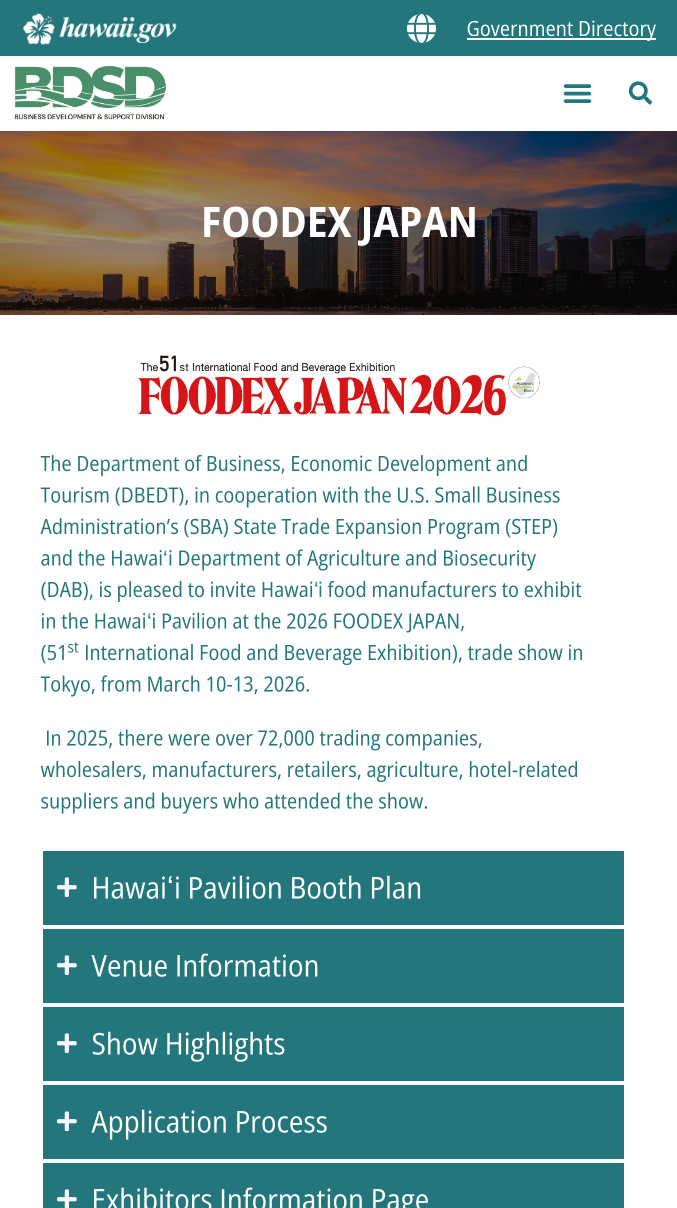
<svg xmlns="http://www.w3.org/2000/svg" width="677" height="1208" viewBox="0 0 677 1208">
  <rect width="100%" height="100%" fill="#fff"/>
  <path d="M0 0h677v56H0z" fill="#22767c"/>
  <image x="23" y="13" width="154" height="32" href="img/1.png"/>
  <image x="407" y="14" width="29" height="29" href="img/2.png"/>
  <path d="M467 38h189v2H467z" fill="#fff"/>
  <image x="467" y="20" width="189" height="21" href="img/3.png"/>
  <image x="14" y="65" width="152" height="55" href="img/4.png"/>
  <image x="563" y="84" width="29" height="19" href="img/5.png"/>
  <image x="629" y="81" width="24" height="24" href="img/6.png"/>
  <image x="0" y="131" width="677" height="184" href="img/7.png"/>
  <image x="204" y="206" width="271" height="40" href="img/8.png"/>
  <image x="137" y="355" width="403" height="62" href="img/9.png"/>
  <image x="40" y="454" width="487" height="22" href="img/10.png"/>
  <image x="40" y="486" width="520" height="22" href="img/11.png"/>
  <image x="40" y="518" width="518" height="21" href="img/12.png"/>
  <image x="41" y="549" width="121" height="17" href="img/13.png"/>
  <image x="169" y="549" width="367" height="22" href="img/14.png"/>
  <image x="41" y="581" width="272" height="21" href="img/15.png"/>
  <image x="319" y="580" width="263" height="18" href="img/16.png"/>
  <image x="42" y="612" width="104" height="17" href="img/17.png"/>
  <image x="153" y="612" width="311" height="21" href="img/18.png"/>
  <image x="41" y="644" width="23" height="20" href="img/19.png"/>
  <image x="68" y="642" width="11" height="11" href="img/20.png"/>
  <image x="86" y="644" width="496" height="21" href="img/21.png"/>
  <image x="40" y="675" width="269" height="22" href="img/22.png"/>
  <image x="47" y="729" width="435" height="22" href="img/23.png"/>
  <image x="40" y="760" width="538" height="22" href="img/24.png"/>
  <image x="41" y="792" width="386" height="22" href="img/25.png"/>
  <path d="M43 851h581v74H43z" fill="#22767c"/>
  <image x="57" y="877" width="20" height="21" href="img/26.png"/>
  <image x="94" y="876" width="71" height="23" href="img/27.png"/>
  <image x="176" y="875" width="245" height="24" href="img/28.png"/>
  <path d="M43 929h581v74H43z" fill="#22767c"/>
  <image x="57" y="955" width="20" height="21" href="img/26.png"/>
  <image x="91" y="953" width="227" height="24" href="img/29.png"/>
  <path d="M43 1007h581v74H43z" fill="#22767c"/>
  <image x="57" y="1033" width="20" height="21" href="img/26.png"/>
  <image x="92" y="1031" width="193" height="31" href="img/30.png"/>
  <path d="M43 1085h581v74H43z" fill="#22767c"/>
  <image x="57" y="1111" width="20" height="21" href="img/26.png"/>
  <image x="91" y="1109" width="236" height="31" href="img/31.png"/>
  <path d="M43 1163h581v45H43z" fill="#22767c"/>
  <image x="57" y="1189" width="20" height="19" href="img/32.png"/>
  <image x="94" y="1187" width="334" height="21" href="img/33.png"/>
  <g font-family="Liberation Sans" font-size="21" fill="#22767c">
    <text x="163" y="566">ʻ</text>
    <text x="314" y="597">ʻ</text>
    <text x="147" y="629">ʻ</text>
  </g>
  <text x="167" y="898" font-family="Liberation Sans" font-size="30" fill="#fff">ʻ</text>
</svg>
